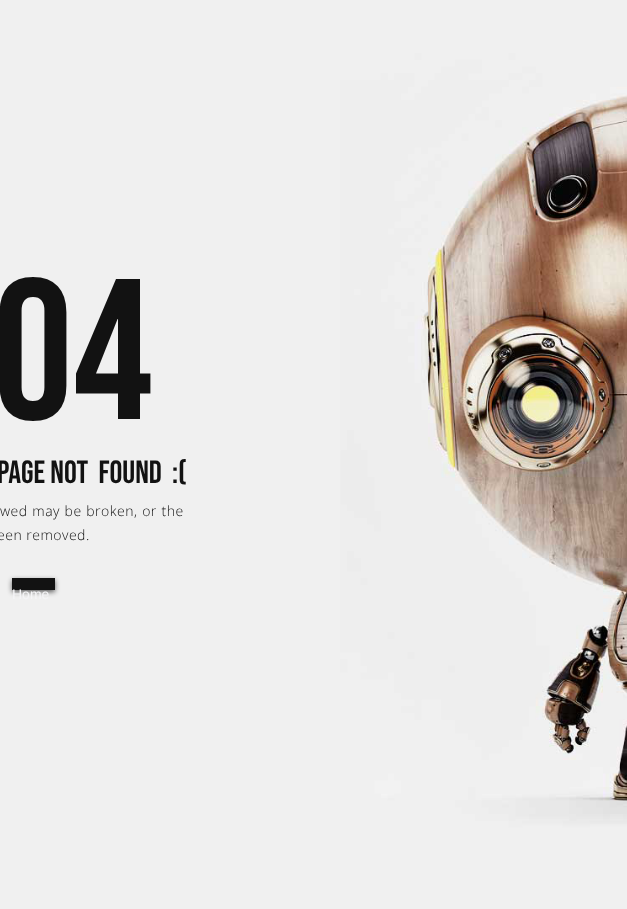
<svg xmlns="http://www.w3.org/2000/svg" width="627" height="909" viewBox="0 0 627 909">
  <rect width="100%" height="100%" fill="#fff"/>
  <image x="0" y="0" width="627" height="909" href="img/1.png"/>
  <path d="M12 580h43v12H12z" fill="#0000009e" filter="blur(2.5px)"/>
  <path d="M12 578h43v12H12z" fill="#121212"/>
  <text x="-7" y="419" font-family="Bebas Neue" font-size="200" fill="#121212">04</text>
  <text x="-3" y="483" font-family="Bebas Neue" font-size="32" fill="#121212" xml:space="preserve">page not  found  :(</text>
  <g font-family="Open Sans" font-size="14" font-weight="300" letter-spacing="0.5" fill="#121212">
    <text x="0" y="516" word-spacing="0.5">wed may be broken, or the</text>
    <text x="-3" y="540">een removed.</text>
  </g>
  <text x="12" y="599" font-family="Liberation Sans" font-size="14" fill="#f5f5f7">Home</text>
</svg>
